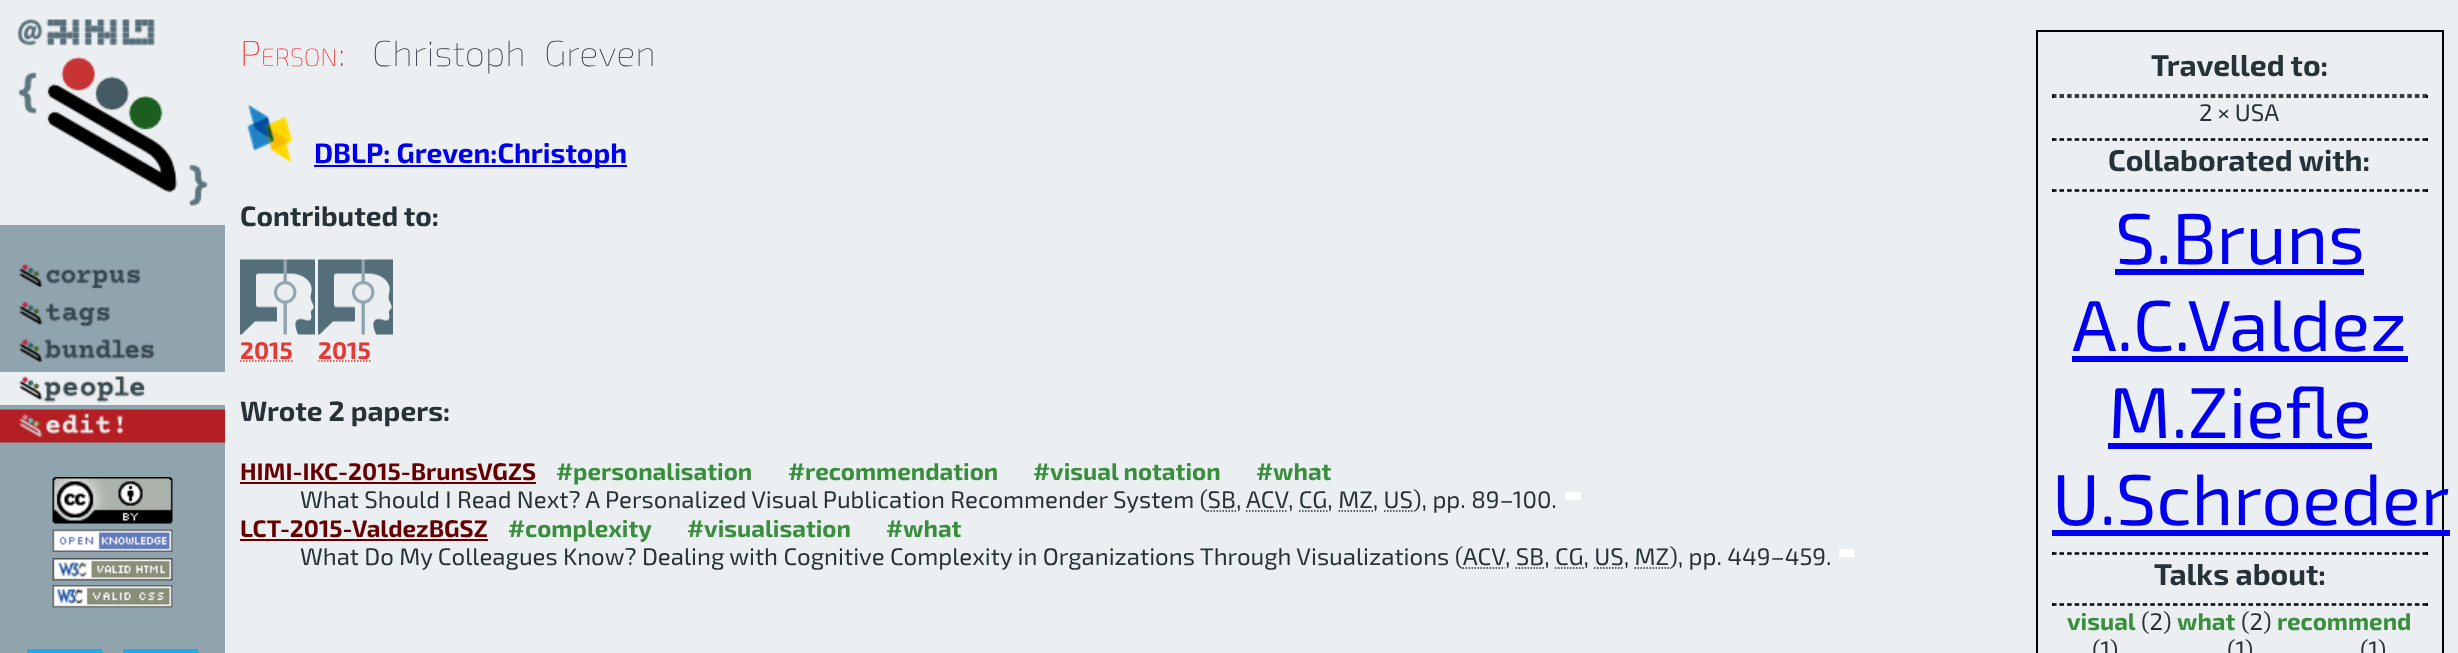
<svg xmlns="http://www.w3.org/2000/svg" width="2458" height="653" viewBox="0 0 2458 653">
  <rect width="100%" height="100%" fill="#eceff1"/>
  <path d="M0 225h225v428H0z" fill="#90a4ae"/>
  <image x="0" y="0" width="225" height="225" href="img/1.png"/>
  <image x="19" y="263" width="123" height="26" href="img/2.png"/>
  <image x="19" y="301" width="91" height="27" href="img/3.png"/>
  <image x="19" y="338" width="136" height="25" href="img/4.png"/>
  <image x="0" y="372" width="225" height="33" href="img/5.png"/>
  <image x="0" y="409" width="225" height="34" href="img/6.png"/>
  <image x="52" y="477" width="121" height="47" href="img/7.png"/>
  <image x="52" y="529" width="121" height="23" href="img/8.png"/>
  <image x="52" y="558" width="121" height="23" href="img/9.png"/>
  <image x="52" y="585" width="121" height="23" href="img/10.png"/>
  <path d="M27 649h75v4H27z" fill="#1daaf1"/>
  <path d="M123 649h75v4H123z" fill="#1daaf1"/>
  <path d="M2037 31h406v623H2037z" fill="none" stroke="#000" stroke-width="2"/>
  <path d="M2052 95H2427" fill="none" stroke="#000" stroke-width="1.5" stroke-dasharray="4.5 3.06"/>
  <path d="M2426 95h2v3H2426z" fill="#000"/>
  <path d="M2052 97H2427" fill="none" stroke="#000" stroke-width="1.5" stroke-dasharray="4.5 3.06"/>
  <path d="M2052 95h2v3H2052z" fill="#000"/>
  <path d="M2052 139H2427" fill="none" stroke="#000" stroke-width="1.5" stroke-dasharray="4.5 3.06"/>
  <path d="M2426 138h2v3H2426z" fill="#000"/>
  <path d="M2052 140H2427" fill="none" stroke="#000" stroke-width="1.5" stroke-dasharray="4.5 3.06"/>
  <path d="M2052 138h2v3H2052z" fill="#000"/>
  <path d="M2052 190H2427" fill="none" stroke="#000" stroke-width="1.5" stroke-dasharray="4.5 3.06"/>
  <path d="M2426 189h2v3H2426z" fill="#000"/>
  <path d="M2052 191H2427" fill="none" stroke="#000" stroke-width="1.5" stroke-dasharray="4.5 3.06"/>
  <path d="M2052 189h2v3H2052z" fill="#000"/>
  <path d="M2115 269h249v6H2115z" fill="#00e"/>
  <path d="M2072 356h336v6H2072z" fill="#00e"/>
  <path d="M2108 443h264v6H2108z" fill="#00e"/>
  <path d="M2052 530h398v6H2052z" fill="#00e"/>
  <path d="M2052 553H2427" fill="none" stroke="#000" stroke-width="1.5" stroke-dasharray="4.5 3.06"/>
  <path d="M2426 552h2v3H2426z" fill="#000"/>
  <path d="M2052 554H2427" fill="none" stroke="#000" stroke-width="1.5" stroke-dasharray="4.5 3.06"/>
  <path d="M2052 552h2v3H2052z" fill="#000"/>
  <path d="M2052 604H2427" fill="none" stroke="#000" stroke-width="1.5" stroke-dasharray="4.5 3.06"/>
  <path d="M2426 603h2v3H2426z" fill="#000"/>
  <path d="M2052 605H2427" fill="none" stroke="#000" stroke-width="1.5" stroke-dasharray="4.5 3.06"/>
  <path d="M2052 603h2v3H2052z" fill="#000"/>
  <image x="247" y="104" width="46" height="59" href="img/11.png"/>
  <path d="M314 165h313v2H314z" fill="#00e"/>
  <image x="240" y="259" width="75" height="76" href="img/12.png"/>
  <path d="M240 361H292.5" fill="none" stroke="#e53935" stroke-width="1.5" stroke-dasharray="1.5 1.5"/>
  <image x="318" y="259" width="75" height="76" href="img/12.png"/>
  <path d="M318 361H370.5" fill="none" stroke="#e53935" stroke-width="1.5" stroke-dasharray="1.5 1.5"/>
  <path d="M240 482h296v2H240z" fill="#600"/>
  <path d="M1246 511H1288" fill="none" stroke="#263238" stroke-width="1.5" stroke-dasharray="1.5 1.5"/>
  <path d="M1207.5 511H1236" fill="none" stroke="#263238" stroke-width="1.5" stroke-dasharray="1.5 1.5"/>
  <path d="M1299 511H1327.5" fill="none" stroke="#263238" stroke-width="1.5" stroke-dasharray="1.5 1.5"/>
  <path d="M1338.5 511H1373" fill="none" stroke="#263238" stroke-width="1.5" stroke-dasharray="1.5 1.5"/>
  <path d="M1384 511H1413" fill="none" stroke="#263238" stroke-width="1.5" stroke-dasharray="1.5 1.5"/>
  <path d="M1565 492h16v8H1565z" fill="#fff"/>
  <path d="M240 539h248v2H240z" fill="#600"/>
  <path d="M1462.5 568H1505" fill="none" stroke="#263238" stroke-width="1.5" stroke-dasharray="1.5 1.5"/>
  <path d="M1515.5 568H1544" fill="none" stroke="#263238" stroke-width="1.5" stroke-dasharray="1.5 1.5"/>
  <path d="M1555 568H1583.5" fill="none" stroke="#263238" stroke-width="1.5" stroke-dasharray="1.5 1.5"/>
  <path d="M1594 568H1623.5" fill="none" stroke="#263238" stroke-width="1.5" stroke-dasharray="1.5 1.5"/>
  <path d="M1634.5 568H1669" fill="none" stroke="#263238" stroke-width="1.5" stroke-dasharray="1.5 1.5"/>
  <path d="M1839 549h15v8H1839z" fill="#fff"/>
  <text x="240" y="66" font-family="'Exo 2'" font-size="36" font-weight="100" fill="#f00">P</text>
  <text x="261" y="66" font-family="'Exo 2'" font-size="25" font-weight="100" fill="#f00">ERSON</text>
  <text x="338" y="66" font-family="'Exo 2'" font-size="36" font-weight="100" fill="#f00">:</text>
  <text x="372" y="66" word-spacing="10" font-family="'Exo 2'" font-size="36" font-weight="100" fill="#263238">Christoph Greven</text>
  <text x="2151" y="76" font-family="'Exo 2'" font-size="30" font-weight="bold" fill="#263238">Travelled to:</text>
  <text x="2199" y="121" font-family="'Exo 2'" font-size="24" fill="#263238">2 × USA</text>
  <text x="2108" y="171" font-family="'Exo 2'" font-size="30" font-weight="bold" fill="#263238">Collaborated with:</text>
  <g font-family="'Exo 2'" font-size="72" fill="#00e">
    <text x="2115" y="264">S.Bruns</text>
    <text x="2072" y="351">A.C.Valdez</text>
    <text x="2108" y="438">M.Ziefle</text>
    <text x="2052" y="525">U.Schroeder</text>
  </g>
  <text x="2154" y="585" font-family="'Exo 2'" font-size="30" font-weight="bold" fill="#263238">Talks about:</text>
  <text x="2067" y="630" font-family="'Exo 2'" font-size="24" font-weight="bold" fill="#388e3c">visual</text>
  <text x="2141" y="630" font-family="'Exo 2'" font-size="24" fill="#263238">(2)</text>
  <text x="2177" y="630" font-family="'Exo 2'" font-size="24" font-weight="bold" fill="#388e3c">what</text>
  <text x="2241" y="630" font-family="'Exo 2'" font-size="24" fill="#263238">(2)</text>
  <text x="2277" y="630" font-family="'Exo 2'" font-size="24" font-weight="bold" fill="#388e3c">recommend</text>
  <g font-family="'Exo 2'" font-size="24" fill="#263238">
    <text x="2092" y="658">(1)</text>
    <text x="2227" y="658">(1)</text>
    <text x="2360" y="658">(1)</text>
  </g>
  <text x="314" y="163" font-family="'Exo 2'" font-size="28" font-weight="bold" fill="#00e">DBLP: Greven:Christoph</text>
  <text x="240" y="226" font-family="'Exo 2'" font-size="28" font-weight="bold" fill="#263238">Contributed to:</text>
  <g font-family="'Exo 2'" font-size="24" font-weight="bold" fill="#e53935">
    <text x="240" y="359">2015</text>
    <text x="318" y="359">2015</text>
  </g>
  <text x="240" y="421" font-family="'Exo 2'" font-size="28" font-weight="bold" fill="#263238">Wrote 2 papers:</text>
  <text x="240" y="480" font-family="'Exo 2'" font-size="24" font-weight="bold" fill="#600">HIMI-IKC-2015-BrunsVGZS</text>
  <g font-family="'Exo 2'" font-size="24" font-weight="bold" fill="#388e3c">
    <text x="556" y="480">#personalisation</text>
    <text x="788" y="480">#recommendation</text>
    <text x="1033" y="480">#visual notation</text>
    <text x="1256" y="480">#what</text>
  </g>
  <g font-family="'Exo 2'" font-size="24" fill="#263238">
    <text x="300" y="508">What Should I Read Next? A Personalized Visual Publication Recommender System (SB,</text>
    <text x="1246" y="508">ACV</text>
    <text x="1288" y="508">, CG, MZ, US</text>
    <text x="1413" y="508">), pp. 89–100.</text>
  </g>
  <text x="240" y="537" font-family="'Exo 2'" font-size="24" font-weight="bold" fill="#600">LCT-2015-ValdezBGSZ</text>
  <g font-family="'Exo 2'" font-size="24" font-weight="bold" fill="#388e3c">
    <text x="508" y="537">#complexity</text>
    <text x="687" y="537">#visualisation</text>
    <text x="886" y="537">#what</text>
  </g>
  <g font-family="'Exo 2'" font-size="24" fill="#263238">
    <text x="300" y="565">What Do My Colleagues Know? Dealing with Cognitive Complexity in Organizations Through Visualizations (ACV</text>
    <text x="1505" y="565">, SB, CG, US, MZ), pp. 449–459.</text>
  </g>
</svg>
